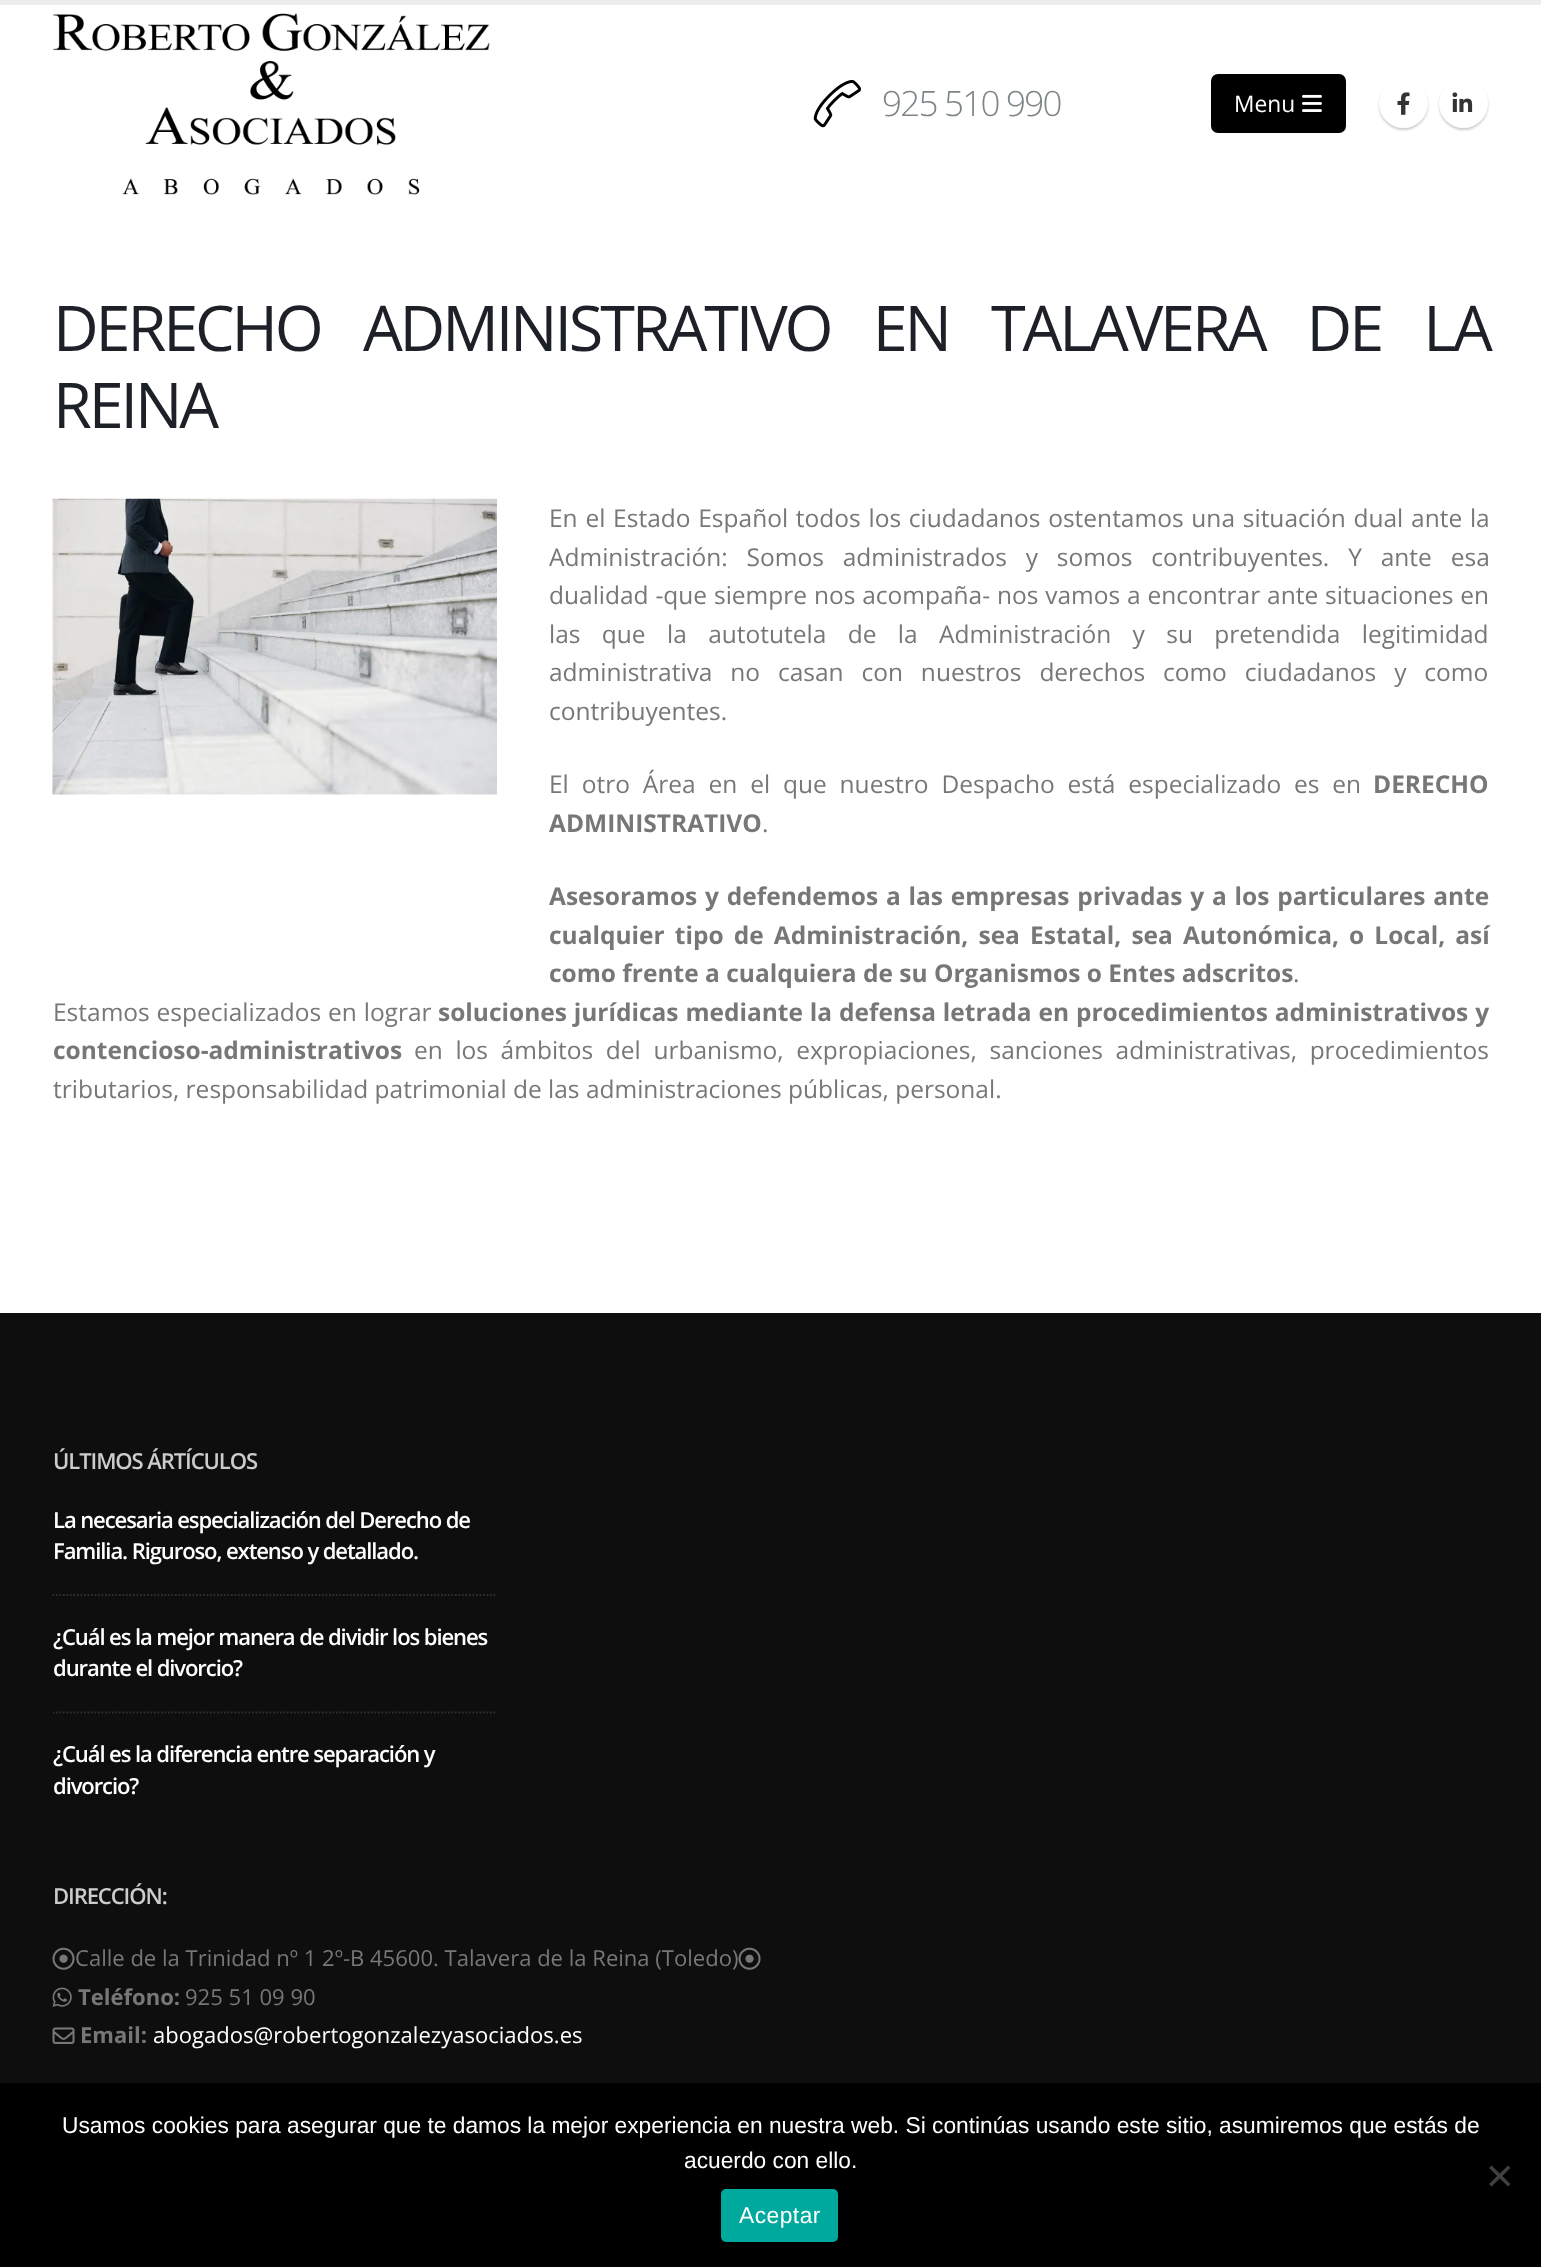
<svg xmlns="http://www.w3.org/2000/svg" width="1541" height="2267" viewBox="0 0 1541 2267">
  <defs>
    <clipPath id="clip1"><path d="M53 1446h1436v383H53z"/></clipPath>
  </defs>
  <rect width="100%" height="100%" fill="#fff"/>
  <path d="M0 0h1541v5H0z" fill="#ededed"/>
  <image x="53" y="13" width="437" height="182" href="img/1.png"/>
  <image x="813" y="79" width="48" height="49" href="img/2.png"/>
  <rect x="1211" y="74" width="135" height="59" rx="7" fill="#000"/>
  <image x="1302" y="94" width="20" height="18" href="img/3.png"/>
  <rect x="1379" y="81" width="49" height="49" rx="24.5" fill="#00000033" filter="blur(1px)"/>
  <circle cx="1403.5" cy="103.5" r="24.5" fill="#fff"/>
  <image x="1397" y="92" width="13" height="23" href="img/4.png"/>
  <rect x="1439" y="81" width="49" height="49" rx="24.5" fill="#00000033" filter="blur(1px)"/>
  <circle cx="1463.5" cy="103.5" r="24.5" fill="#fff"/>
  <image x="1452" y="92" width="21" height="20" href="img/5.png"/>
  <image x="52" y="498" width="445" height="297" href="img/6.png"/>
  <path d="M0 1313h1541v770H0z" fill="#0e0e0e"/>
  <path d="M52.5 1595H497" fill="none" stroke="#2e2e2e" stroke-width="1.8" stroke-dasharray="1.75 1.75"/>
  <g clip-path="url(#clip1)">
    <path d="M52.5 1712.5H497" fill="none" stroke="#2e2e2e" stroke-width="1.8" stroke-dasharray="1.75 1.75"/>
  </g>
  <image x="52" y="1947" width="23" height="23" href="img/7.png"/>
  <image x="738" y="1947" width="23" height="23" href="img/7.png"/>
  <image x="52" y="1987" width="20" height="20" href="img/8.png"/>
  <image x="52" y="2027" width="23" height="17" href="img/9.png"/>
  <path d="M0 2083h1541v184H0z" fill="#000"/>
  <path d="M1508 2165.5L1510.5 2168L1491.5 2186.5L1489 2184Z" fill="#404040"/>
  <path d="M1489 2168L1491.5 2165.5L1510.5 2184L1508 2186.5Z" fill="#404040"/>
  <rect x="721" y="2189" width="117" height="53" rx="5" fill="#00a99d"/>
  <text x="882" y="116" font-family="Open Sans" font-size="35" font-weight="300" letter-spacing="-1.75" fill="#7e8588">925 510 990</text>
  <text x="1234" y="112" font-family="Open Sans" font-size="22.75" fill="#fff">Menu</text>
  <g font-family="Open Sans" font-size="63" letter-spacing="-3.15" fill="#1d2127">
    <text x="53" y="351" word-spacing="29">DERECHO ADMINISTRATIVO EN TALAVERA DE LA</text>
    <text x="53" y="428">REINA</text>
  </g>
  <g font-family="Open Sans" font-size="24.5" fill="#777">
    <text x="549" y="527" word-spacing="1.4">En el Estado Español todos los ciudadanos ostentamos una situación dual ante la</text>
    <text x="549" y="566" word-spacing="12.5">Administración: Somos administrados y somos contribuyentes. Y ante esa</text>
    <text x="549" y="604" word-spacing="0.5">dualidad -que siempre nos acompaña- nos vamos a encontrar ante situaciones en</text>
    <text x="549" y="643" word-spacing="15">las que la autotutela de la Administración y su pretendida legitimidad</text>
    <text x="549" y="681" word-spacing="11.5">administrativa no casan con nuestros derechos como ciudadanos y como</text>
    <text x="549" y="720">contribuyentes.</text>
    <text x="549" y="793" word-spacing="6.5">El otro Área en el que nuestro Despacho está especializado es en</text>
  </g>
  <g font-family="Open Sans" font-size="24.5" font-weight="bold" fill="#777">
    <text x="1373" y="793">DERECHO</text>
    <text x="549" y="832">ADMINISTRATIVO</text>
  </g>
  <text x="762" y="832" font-family="Open Sans" font-size="24.5" fill="#777">.</text>
  <g font-family="Open Sans" font-size="24.5" font-weight="bold" fill="#777">
    <text x="549" y="905" word-spacing="1.4">Asesoramos y defendemos a las empresas privadas y a los particulares ante</text>
    <text x="549" y="944" word-spacing="3.75">cualquier tipo de Administración, sea Estatal, sea Autonómica, o Local, así</text>
    <text x="549" y="982">como frente a cualquiera de su Organismos o Entes adscritos</text>
  </g>
  <g font-family="Open Sans" font-size="24.5" fill="#777">
    <text x="1293" y="982">.</text>
    <text x="53" y="1021" word-spacing="0.5">Estamos especializados en lograr</text>
  </g>
  <g font-family="Open Sans" font-size="24.5" font-weight="bold" fill="#777">
    <text x="438" y="1021" word-spacing="0.5">soluciones jurídicas mediante la defensa letrada en procedimientos administrativos y</text>
    <text x="53" y="1059">contencioso-administrativos</text>
  </g>
  <g font-family="Open Sans" font-size="24.5" fill="#777">
    <text x="414" y="1059" word-spacing="6.25">en los ámbitos del urbanismo, expropiaciones, sanciones administrativas, procedimientos</text>
    <text x="53" y="1098">tributarios, responsabilidad patrimonial de las administraciones públicas, personal.</text>
  </g>
  <text x="53" y="1469" font-family="Open Sans" font-size="22.05" font-weight="600" letter-spacing="-1.1" fill="#ccc">ÚLTIMOS ÁRTÍCULOS</text>
  <g font-family="Open Sans" font-size="22.05" font-weight="600" letter-spacing="-1.1" fill="#fff">
    <text x="53" y="1528">La necesaria especialización del Derecho de</text>
    <text x="53" y="1559">Familia. Riguroso, extenso y detallado.</text>
    <text x="53" y="1645">¿Cuál es la mejor manera de dividir los bienes</text>
    <text x="53" y="1676">durante el divorcio?</text>
    <text x="53" y="1762">¿Cuál es la diferencia entre separación y</text>
    <text x="53" y="1794">divorcio?</text>
  </g>
  <text x="53" y="1904" font-family="Open Sans" font-size="22.05" font-weight="600" letter-spacing="-1.1" fill="#ccc">DIRECCIÓN:</text>
  <text x="75" y="1966" font-family="Open Sans" font-size="22.05" fill="#777">Calle de la Trinidad nº 1 2º-B 45600. Talavera de la Reina (Toledo)</text>
  <text x="78" y="2005" font-family="Open Sans" font-size="22.05" font-weight="bold" fill="#777">Teléfono:</text>
  <text x="185" y="2005" font-family="Open Sans" font-size="22.05" fill="#777">925 51 09 90</text>
  <text x="80" y="2043" font-family="Open Sans" font-size="22.05" font-weight="bold" fill="#777">Email:</text>
  <text x="153" y="2043" font-family="Open Sans" font-size="22.05" fill="#fff">abogados@robertogonzalezyasociados.es</text>
  <g font-family="Liberation Sans" font-size="22.75" fill="#fff">
    <text x="62" y="2133">Usamos cookies para asegurar que te damos la mejor experiencia en nuestra web. Si continúas usando este sitio, asumiremos que estás de</text>
    <text x="684" y="2168">acuerdo con ello.</text>
  </g>
  <text x="739" y="2223" font-family="Liberation Sans" font-size="22.75" letter-spacing="0.5" fill="#fff">Aceptar</text>
</svg>
